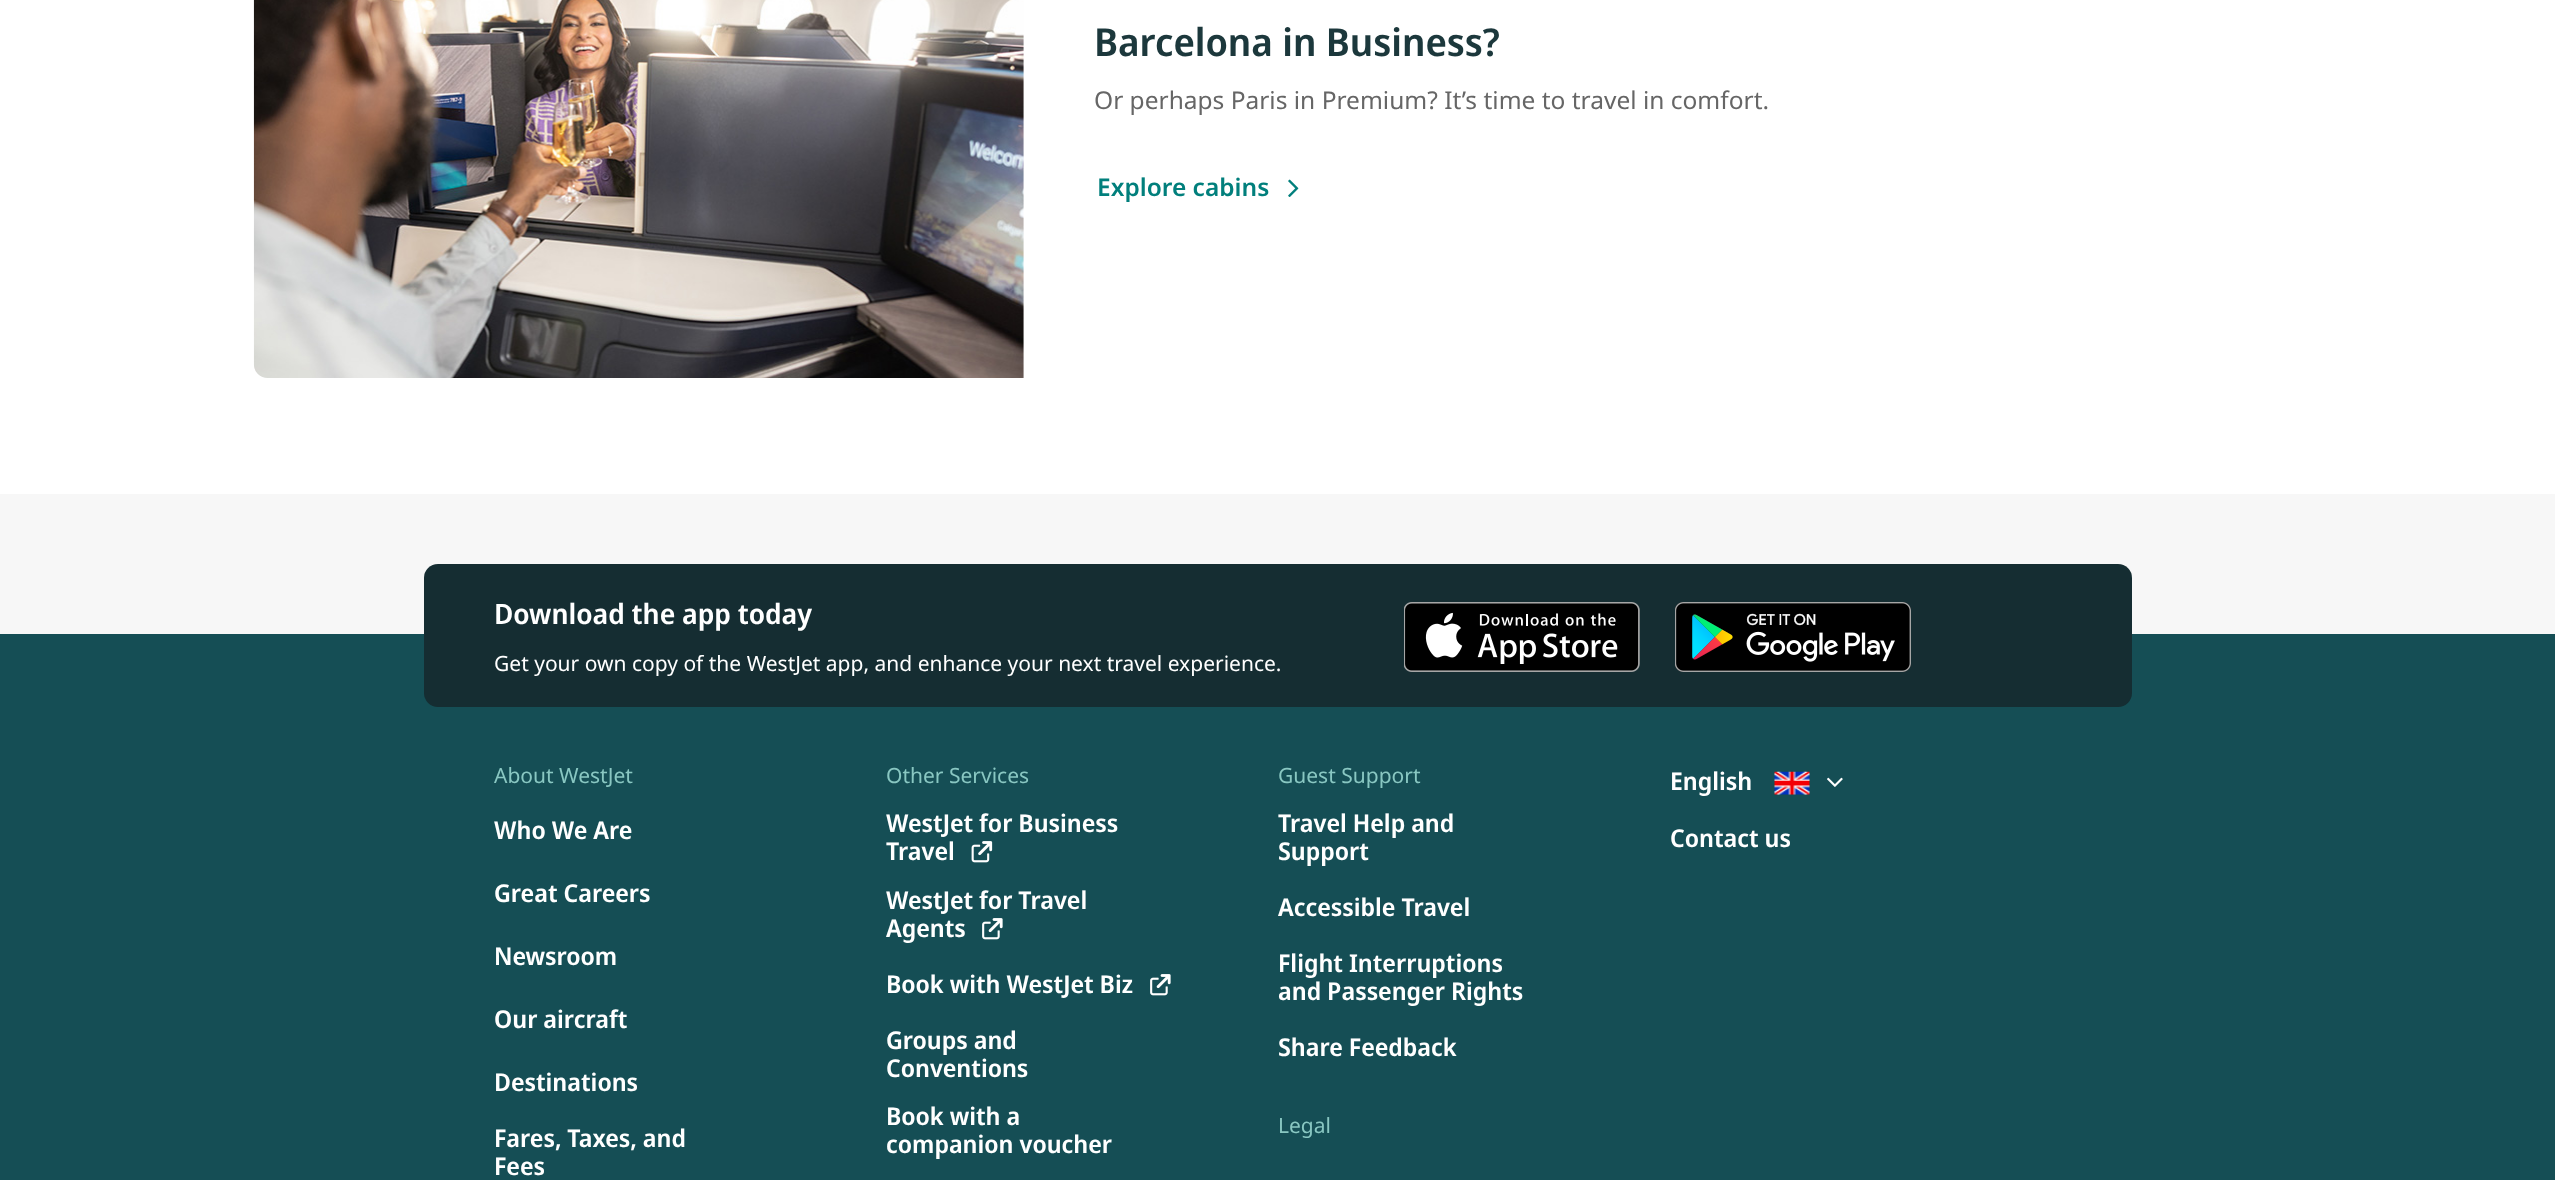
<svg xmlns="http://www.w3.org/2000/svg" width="2555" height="1180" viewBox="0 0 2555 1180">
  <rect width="100%" height="100%" fill="#f7f7f7"/>
  <path d="M0 0h2555v494H0z" fill="#fff"/>
  <image x="253" y="0" width="771" height="378" href="img/1.png"/>
  <image x="1288" y="179" width="11" height="18" href="img/2.png"/>
  <path d="M0 634h2555v546H0z" fill="#154e55"/>
  <rect x="424" y="564" width="1708" height="143" rx="14" fill="#152d32"/>
  <image x="1404" y="602" width="236" height="70" href="img/3.png"/>
  <image x="1675" y="602" width="236" height="70" href="img/4.png"/>
  <image x="971" y="841" width="22" height="22" href="img/5.png"/>
  <image x="982" y="918" width="21" height="22" href="img/6.png"/>
  <image x="1150" y="974" width="21" height="22" href="img/6.png"/>
  <image x="1774" y="771" width="36" height="24" href="img/7.png"/>
  <image x="1827" y="777" width="16" height="10" href="img/8.png"/>
  <text x="1094" y="56" font-family="Noto Sans Display" font-size="38.5" font-weight="600" fill="#1c383c">Barcelona in Business?</text>
  <text x="1094" y="109" font-family="Noto Sans" font-size="24.5" fill="#666">Or perhaps Paris in Premium? It’s time to travel in comfort.</text>
  <text x="1097" y="196" font-family="Noto Sans" font-size="24.5" font-weight="600" fill="#017f7c">Explore cabins</text>
  <text x="494" y="624" font-family="Noto Sans Display" font-size="28" font-weight="600" fill="#fff">Download the app today</text>
  <text x="494" y="671" font-family="Noto Sans" font-size="21" fill="#fff">Get your own copy of the WestJet app, and enhance your next travel experience.</text>
  <text x="494" y="783" font-family="Noto Sans" font-size="21" fill="#89c7c2">About WestJet</text>
  <g font-family="Noto Sans Display" font-size="24.5" font-weight="600" fill="#fff">
    <text x="494" y="839">Who We Are</text>
    <text x="494" y="902">Great Careers</text>
    <text x="494" y="965">Newsroom</text>
    <text x="494" y="1028">Our aircraft</text>
    <text x="494" y="1091">Destinations</text>
    <text x="494" y="1147">Fares, Taxes, and</text>
    <text x="494" y="1175">Fees</text>
  </g>
  <text x="886" y="783" font-family="Noto Sans" font-size="21" fill="#89c7c2">Other Services</text>
  <g font-family="Noto Sans Display" font-size="24.5" font-weight="600" fill="#fff">
    <text x="886" y="832">WestJet for Business</text>
    <text x="886" y="860">Travel</text>
    <text x="886" y="909">WestJet for Travel</text>
    <text x="886" y="937">Agents</text>
    <text x="886" y="993">Book with WestJet Biz</text>
    <text x="886" y="1049">Groups and</text>
    <text x="886" y="1077">Conventions</text>
    <text x="886" y="1125">Book with a</text>
    <text x="886" y="1153">companion voucher</text>
  </g>
  <text x="1278" y="783" font-family="Noto Sans" font-size="21" fill="#89c7c2">Guest Support</text>
  <g font-family="Noto Sans Display" font-size="24.5" font-weight="600" fill="#fff">
    <text x="1278" y="832">Travel Help and</text>
    <text x="1278" y="860">Support</text>
    <text x="1278" y="916">Accessible Travel</text>
    <text x="1278" y="972">Flight Interruptions</text>
    <text x="1278" y="1000">and Passenger Rights</text>
    <text x="1278" y="1056">Share Feedback</text>
  </g>
  <text x="1278" y="1133" font-family="Noto Sans" font-size="21" fill="#89c7c2">Legal</text>
  <g font-family="Noto Sans Display" font-size="24.5" font-weight="600" fill="#fff">
    <text x="1670" y="790">English</text>
    <text x="1670" y="847">Contact us</text>
  </g>
</svg>
